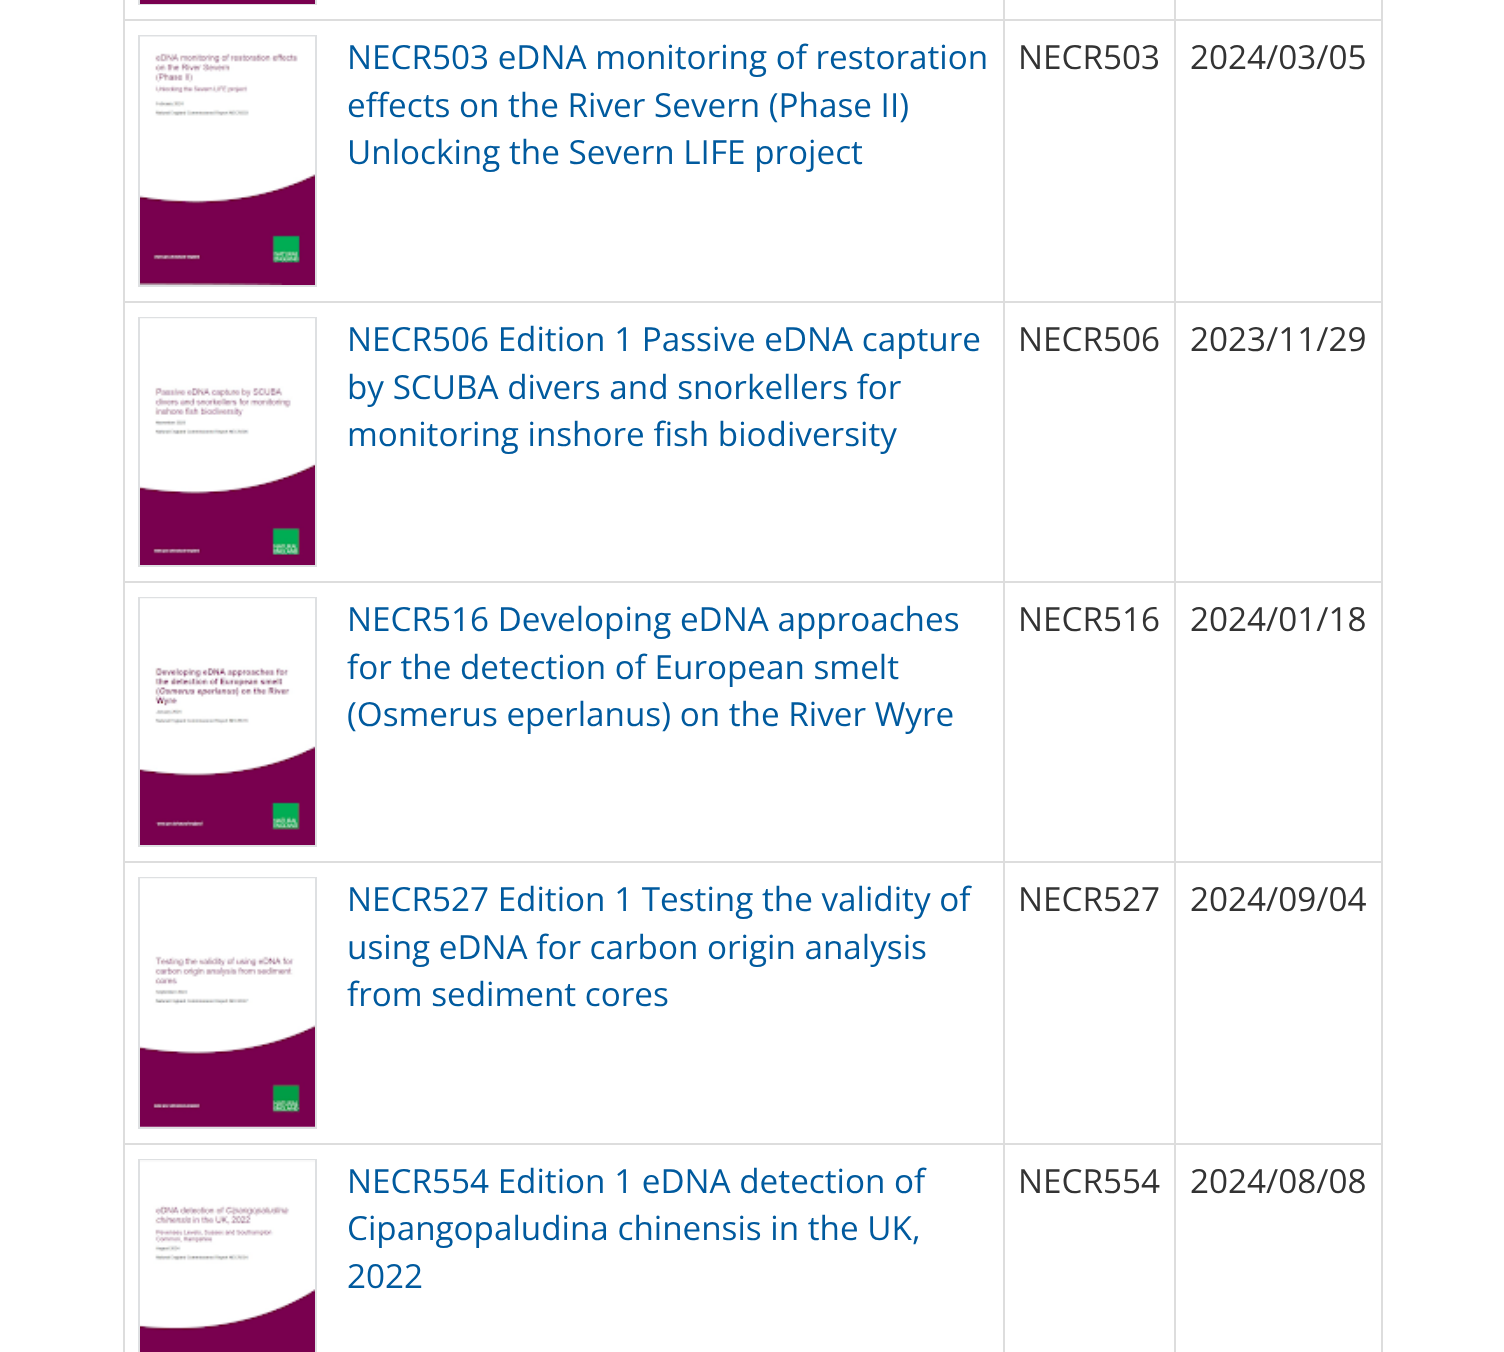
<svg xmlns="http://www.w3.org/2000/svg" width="1504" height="1352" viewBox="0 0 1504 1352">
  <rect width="100%" height="100%" fill="#fff"/>
  <path d="M1381 0h2v1352H1381z" fill="#ddd"/>
  <path d="M123 0h2v1352H123z" fill="#ddd"/>
  <path d="M139 -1h177v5H139z" fill="none" stroke="#dee0e2" stroke-width="2"/>
  <path d="M140 0h175v4H140z" fill="#79004f"/>
  <path d="M1174 19h209v2H1174z" fill="#ddd"/>
  <path d="M1174 301h209v2H1174z" fill="#ddd"/>
  <path d="M1174 581h209v2H1174z" fill="#ddd"/>
  <path d="M1174 861h209v2H1174z" fill="#ddd"/>
  <path d="M1174 1143h209v2H1174z" fill="#ddd"/>
  <path d="M1174 1143h2v209H1174z" fill="#ddd"/>
  <path d="M1003 1143h173v2H1003z" fill="#ddd"/>
  <path d="M1174 861h2v284H1174z" fill="#ddd"/>
  <path d="M1003 861h173v2H1003z" fill="#ddd"/>
  <path d="M1174 581h2v282H1174z" fill="#ddd"/>
  <path d="M1003 581h173v2H1003z" fill="#ddd"/>
  <path d="M1174 301h2v282H1174z" fill="#ddd"/>
  <path d="M1003 301h173v2H1003z" fill="#ddd"/>
  <path d="M1174 19h2v284H1174z" fill="#ddd"/>
  <path d="M1003 19h173v2H1003z" fill="#ddd"/>
  <path d="M1003 1143h2v209H1003z" fill="#ddd"/>
  <path d="M123 1143h882v2H123z" fill="#ddd"/>
  <path d="M1003 861h2v284H1003z" fill="#ddd"/>
  <path d="M123 861h882v2H123z" fill="#ddd"/>
  <path d="M1003 581h2v282H1003z" fill="#ddd"/>
  <path d="M123 581h882v2H123z" fill="#ddd"/>
  <path d="M1003 301h2v282H1003z" fill="#ddd"/>
  <path d="M123 301h882v2H123z" fill="#ddd"/>
  <path d="M1003 19h2v284H1003z" fill="#ddd"/>
  <path d="M123 19h882v2H123z" fill="#ddd"/>
  <path d="M1003 0h2v21H1003z" fill="#ddd"/>
  <path d="M1174 0h2v21H1174z" fill="#ddd"/>
  <path d="M139 36h177v250H139z" fill="none" stroke="#dee0e2" stroke-width="2"/>
  <image x="140" y="36" width="175" height="249" href="img/1.png"/>
  <path d="M139 318h177v248H139z" fill="none" stroke="#dee0e2" stroke-width="2"/>
  <image x="140" y="318" width="175" height="247" href="img/2.png"/>
  <path d="M139 598h177v248H139z" fill="none" stroke="#dee0e2" stroke-width="2"/>
  <image x="140" y="598" width="175" height="247" href="img/3.png"/>
  <path d="M139 878h177v250H139z" fill="none" stroke="#dee0e2" stroke-width="2"/>
  <image x="140" y="878" width="175" height="249" href="img/4.png"/>
  <path d="M139 1160h177v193H139z" fill="none" stroke="#dee0e2" stroke-width="2"/>
  <image x="140" y="1160" width="175" height="192" href="img/5.png"/>
  <g font-family="Open Sans" font-size="33.25" fill="#005a9e">
    <text x="347" y="69">NECR503 eDNA monitoring of restoration</text>
    <text x="347" y="117">effects on the River Severn (Phase II)</text>
    <text x="347" y="164">Unlocking the Severn LIFE project</text>
  </g>
  <g font-family="Open Sans" font-size="33.25" fill="#333">
    <text x="1018" y="69">NECR503</text>
    <text x="1190" y="69">2024/03/05</text>
  </g>
  <g font-family="Open Sans" font-size="33.25" fill="#005a9e">
    <text x="347" y="351">NECR506 Edition 1 Passive eDNA capture</text>
    <text x="347" y="399">by SCUBA divers and snorkellers for</text>
    <text x="347" y="446">monitoring inshore fish biodiversity</text>
  </g>
  <g font-family="Open Sans" font-size="33.25" fill="#333">
    <text x="1018" y="351">NECR506</text>
    <text x="1190" y="351">2023/11/29</text>
  </g>
  <g font-family="Open Sans" font-size="33.25" fill="#005a9e">
    <text x="347" y="631">NECR516 Developing eDNA approaches</text>
    <text x="347" y="679">for the detection of European smelt</text>
    <text x="347" y="726">(Osmerus eperlanus) on the River Wyre</text>
  </g>
  <g font-family="Open Sans" font-size="33.25" fill="#333">
    <text x="1018" y="631">NECR516</text>
    <text x="1190" y="631">2024/01/18</text>
  </g>
  <g font-family="Open Sans" font-size="33.25" fill="#005a9e">
    <text x="347" y="911">NECR527 Edition 1 Testing the validity of</text>
    <text x="347" y="959">using eDNA for carbon origin analysis</text>
    <text x="347" y="1006">from sediment cores</text>
  </g>
  <g font-family="Open Sans" font-size="33.25" fill="#333">
    <text x="1018" y="911">NECR527</text>
    <text x="1190" y="911">2024/09/04</text>
  </g>
  <g font-family="Open Sans" font-size="33.25" fill="#005a9e">
    <text x="347" y="1193">NECR554 Edition 1 eDNA detection of</text>
    <text x="347" y="1240">Cipangopaludina chinensis in the UK,</text>
    <text x="347" y="1288">2022</text>
  </g>
  <g font-family="Open Sans" font-size="33.25" fill="#333">
    <text x="1018" y="1193">NECR554</text>
    <text x="1190" y="1193">2024/08/08</text>
  </g>
</svg>
